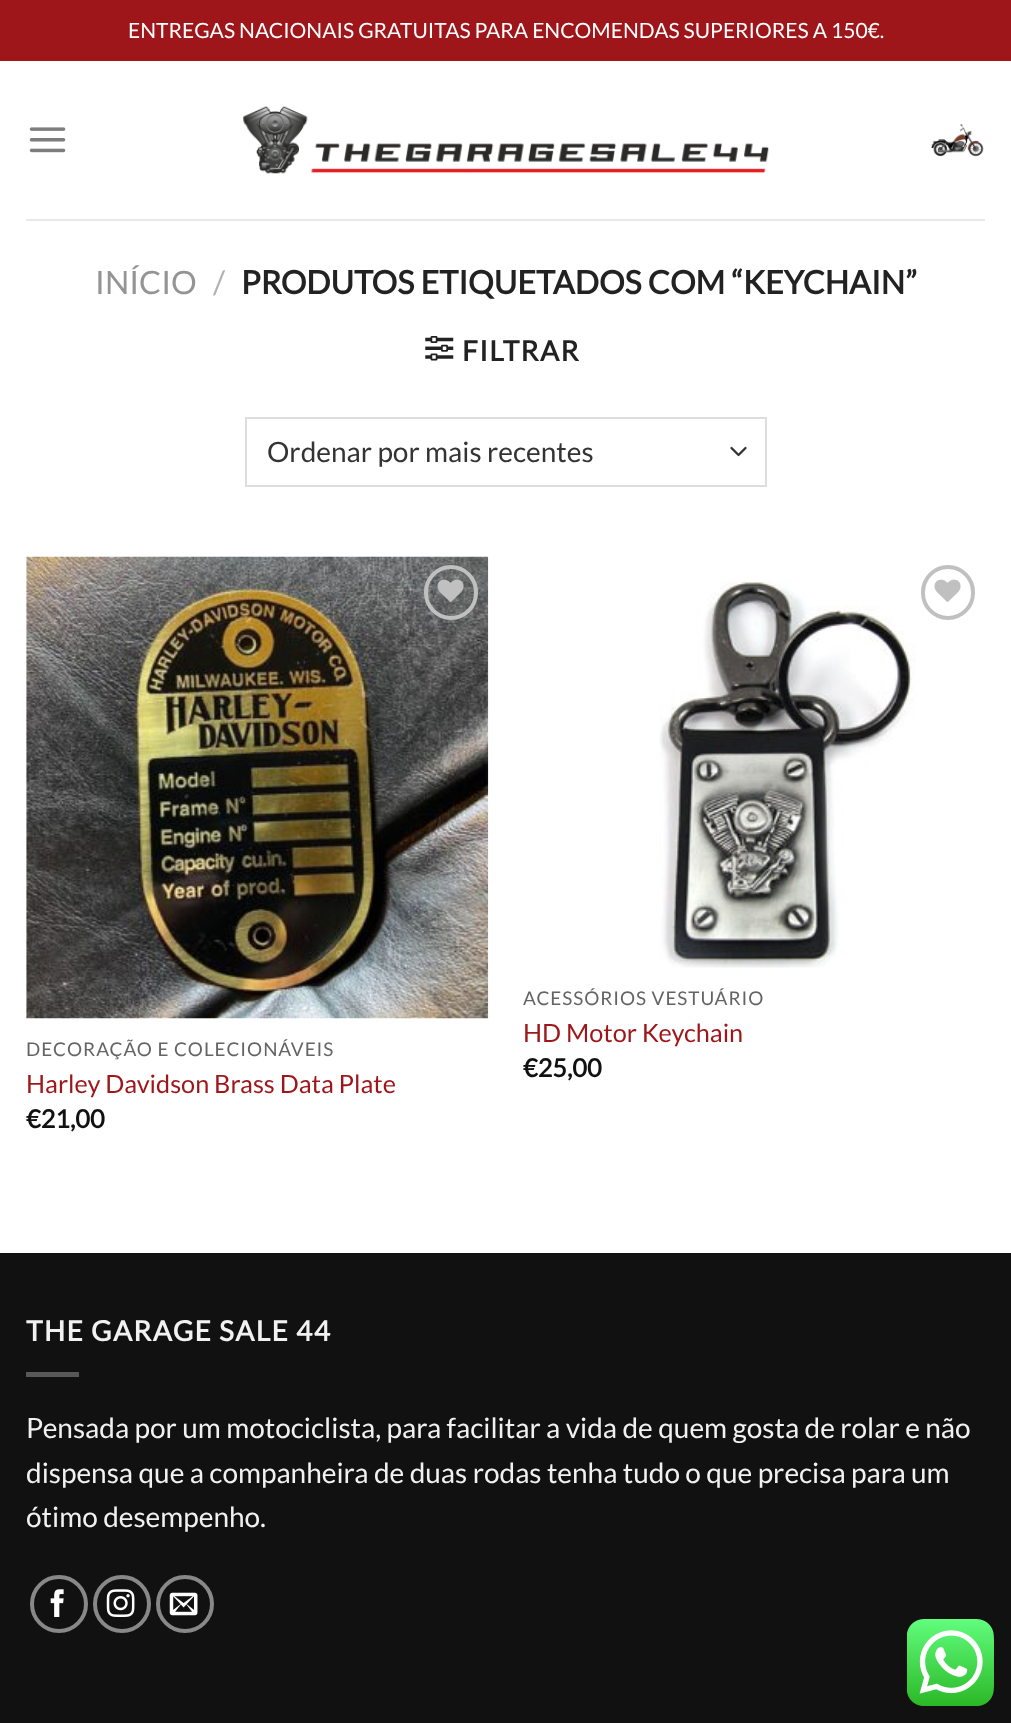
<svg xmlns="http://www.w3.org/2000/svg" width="1011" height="1723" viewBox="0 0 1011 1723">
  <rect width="100%" height="100%" fill="#fff"/>
  <path d="M0 0h1011v61H0z" fill="#9e161a"/>
  <image x="29" y="127" width="37" height="26" href="img/1.png"/>
  <image x="243" y="106" width="526" height="68" href="img/2.png"/>
  <image x="931" y="123" width="53" height="34" href="img/3.png"/>
  <path d="M26 219h959v2H26z" fill="#e9e9e9"/>
  <image x="425" y="336" width="29" height="25" href="img/4.png"/>
  <path d="M731.5 448L738.5 455L745.5 448" fill="none" stroke="#333" stroke-width="2.3" stroke-linecap="round" stroke-linejoin="round"/>
  <path d="M246 418h520v68H246z" fill="none" stroke="#ddd" stroke-width="2"/>
  <image x="26" y="556" width="463" height="463" href="img/5.png"/>
  <rect x="426" y="567" width="50" height="51" rx="25" fill="none" stroke="#c0c0c0" stroke-width="4"/>
  <image x="437" y="579" width="27" height="23" href="img/6.png"/>
  <image x="659" y="581" width="258" height="387" href="img/7.png"/>
  <rect x="923" y="567" width="50" height="51" rx="25" fill="none" stroke="#c0c0c0" stroke-width="4"/>
  <image x="934" y="579" width="27" height="23" href="img/8.png"/>
  <path d="M0 1253h1011v470H0z" fill="#111"/>
  <path d="M26 1372h53v5H26z" fill="#585858"/>
  <circle cx="59" cy="1604" r="27" fill="none" stroke="#888" stroke-width="4"/>
  <image x="50" y="1589" width="14" height="28" href="img/9.png"/>
  <circle cx="122" cy="1604" r="27" fill="none" stroke="#888" stroke-width="4"/>
  <image x="106" y="1589" width="29" height="28" href="img/10.png"/>
  <circle cx="185" cy="1604" r="27" fill="none" stroke="#888" stroke-width="4"/>
  <image x="169" y="1592" width="29" height="24" href="img/11.png"/>
  <image x="907" y="1619" width="87" height="87" href="img/12.png"/>
  <text x="128" y="38" font-family="Lato" font-size="21" fill="#fff">ENTREGAS NACIONAIS GRATUITAS PARA ENCOMENDAS SUPERIORES A 150€.</text>
  <text x="95" y="294" font-family="Lato" font-size="32.2" fill="#949494">INÍCIO</text>
  <text x="213" y="294" font-family="Lato" font-size="32.2" fill="#b2b2b2">/</text>
  <text x="241" y="294" font-family="Lato" font-size="32.2" font-weight="bold" fill="#222">PRODUTOS ETIQUETADOS COM “KEYCHAIN”</text>
  <text x="462" y="361" font-family="Lato" font-size="28" font-weight="bold" letter-spacing="1.4" fill="#222">FILTRAR</text>
  <text x="267" y="462" font-family="Lato" font-size="28" fill="#333">Ordenar por mais recentes</text>
  <text x="26" y="1056" font-family="Lato" font-size="18.9" letter-spacing="0.95" fill="#646464">DECORAÇÃO E COLECIONÁVEIS</text>
  <text x="26" y="1093" font-family="Lato" font-size="25.25" fill="#9e161a">Harley Davidson Brass Data Plate</text>
  <text x="26" y="1128" font-family="Lato" font-size="25.25" font-weight="bold" fill="#111">€21,00</text>
  <text x="523" y="1005" font-family="Lato" font-size="18.9" letter-spacing="0.95" fill="#646464">ACESSÓRIOS VESTUÁRIO</text>
  <text x="523" y="1042" font-family="Lato" font-size="25.25" fill="#9e161a">HD Motor Keychain</text>
  <text x="523" y="1077" font-family="Lato" font-size="25.25" font-weight="bold" fill="#111">€25,00</text>
  <text x="26" y="1341" font-family="Lato" font-size="28" font-weight="bold" letter-spacing="1.4" fill="#f1f1f1">THE GARAGE SALE 44</text>
  <g font-family="Lato" font-size="28" fill="#f1f1f1">
    <text x="26" y="1438">Pensada por um motociclista, para facilitar a vida de quem gosta de rolar e não</text>
    <text x="26" y="1483">dispensa que a companheira de duas rodas tenha tudo o que precisa para um</text>
    <text x="26" y="1527">ótimo desempenho.</text>
  </g>
</svg>
